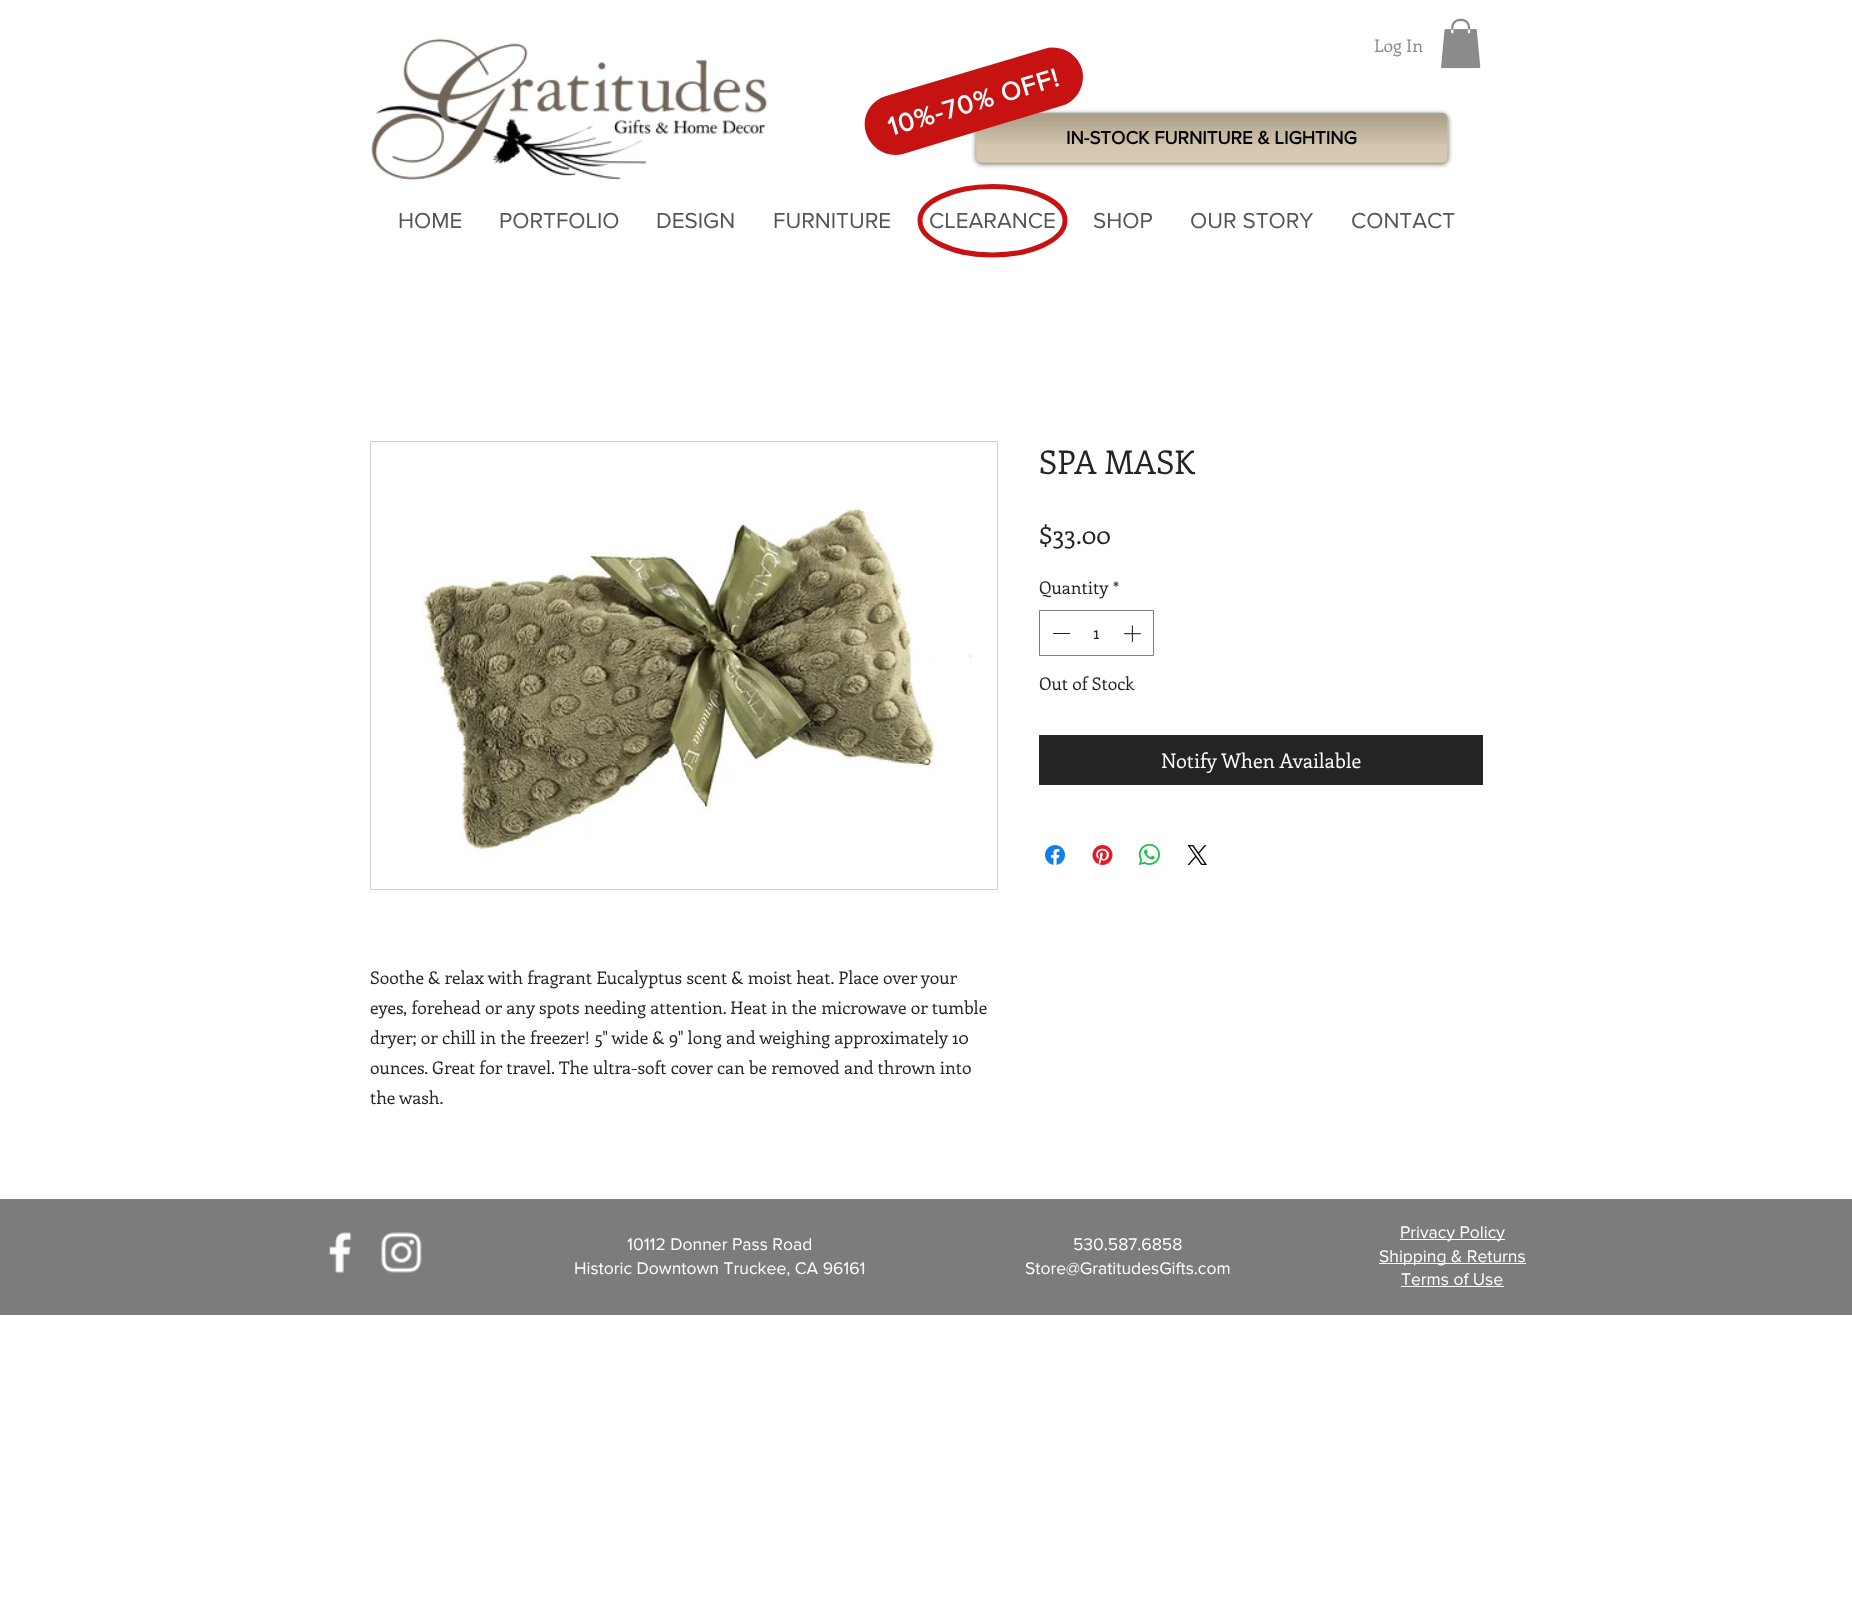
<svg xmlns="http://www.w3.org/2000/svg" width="1852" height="1605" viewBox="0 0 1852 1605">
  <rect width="100%" height="100%" fill="#fff"/>
  <image x="371" y="38" width="396" height="143" href="img/1.png"/>
  <image x="1441" y="18" width="40" height="51" href="img/2.png"/>
  <rect x="976" y="114" width="472" height="50" rx="6" fill="#00000099" filter="blur(2.5px)"/>
  <rect x="976" y="113" width="472" height="50" rx="6" fill="#cebfa4"/>
  <image x="976" y="112" width="472" height="32" href="img/3.png"/>
  <image x="976" y="126" width="471" height="36" href="img/4.png"/>
  <path d="M1039.5 610.5h114v45H1039.5z" fill="none" stroke="#7c7c7c"/>
  <path d="M1053 633h17v1H1053z" fill="#242424"/>
  <image x="1124" y="625" width="17" height="17" href="img/5.png"/>
  <path d="M1039 735h444v50H1039z" fill="#242424"/>
  <image x="1045" y="845" width="20" height="20" href="img/6.png"/>
  <image x="1092" y="845" width="21" height="20" href="img/7.png"/>
  <image x="1138" y="843" width="22" height="22" href="img/8.png"/>
  <image x="1187" y="845" width="20" height="20" href="img/9.png"/>
  <path d="M370.5 441.5h627v448H370.5z" fill="none" stroke="#d1d1d1"/>
  <image x="421" y="507" width="552" height="346" href="img/10.png"/>
  <path d="M0 1199h1852v116H0z" fill="#7c7c7c"/>
  <image x="328" y="1232" width="24" height="41" href="img/11.png"/>
  <image x="381" y="1232" width="41" height="41" href="img/12.png"/>
  <path d="M1400 1239h105v1H1400z" fill="#fff"/>
  <path d="M1379 1263h147v1H1379z" fill="#fff"/>
  <path d="M1401 1286h103v1H1401z" fill="#fff"/>
  <text x="1374" y="52" font-family="Enriqueta" font-size="17.5" fill="#8b8b8b">Log In</text>
  <text x="1066" y="144" font-family="'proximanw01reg'" font-size="18.75" font-weight="bold" fill="#000">IN-STOCK FURNITURE &amp; LIGHTING</text>
  <path d="M886 96L1044 49C1060 44 1077 53 1082 69C1086 85 1077 102 1061 106L903 154C887 158 871 149 866 133C861 117 870 101 886 96Z" fill="#c71212"/>
  <text x="891" y="136" transform="rotate(-16.6 891 136)" font-family="'proximanw01reg'" font-size="26.25" font-weight="bold" letter-spacing="1.25" fill="#fff">10%-70% OFF!</text>
  <g font-family="'proximanw01reg'" font-size="22.5" fill="#555">
    <text x="398" y="228">HOME</text>
    <text x="499" y="228">PORTFOLIO</text>
    <text x="656" y="228">DESIGN</text>
    <text x="773" y="228">FURNITURE</text>
    <text x="929" y="228">CLEARANCE</text>
  </g>
  <path d="M1065 220.5C1065 239.5 1032.5 255 992.5 255C952.5 255 920 239.5 920 220.5C920 201.5 952.5 186.5 992.5 186.5C1032.5 186.5 1065 201.5 1065 220.5Z" fill="none" stroke="#c71212" stroke-width="5"/>
  <g font-family="'proximanw01reg'" font-size="22.5" fill="#555">
    <text x="1093" y="228">SHOP</text>
    <text x="1190" y="228">OUR STORY</text>
    <text x="1351" y="228">CONTACT</text>
  </g>
  <text x="1039" y="474" font-family="Enriqueta" font-size="32.5" fill="#242424">SPA MASK</text>
  <text x="1039" y="544" font-family="Enriqueta" font-size="25" fill="#242424">$33.00</text>
  <g font-family="Enriqueta" font-size="17.5" fill="#242424">
    <text x="1039" y="594">Quantity</text>
    <text x="1113" y="594">*</text>
    <text x="1093" y="639">1</text>
    <text x="1039" y="690">Out of Stock</text>
  </g>
  <text x="1161" y="768" font-family="Enriqueta" font-size="20" fill="#fff">Notify When Available</text>
  <g font-family="Enriqueta" font-size="17.5" fill="#242424">
    <text x="370" y="984">Soothe &amp; relax with fragrant Eucalyptus scent &amp; moist heat. Place over your</text>
    <text x="370" y="1014">eyes, forehead or any spots needing attention. Heat in the microwave or tumble</text>
    <text x="370" y="1044">dryer; or chill in the freezer! 5" wide &amp; 9" long and weighing approximately 10</text>
    <text x="370" y="1074">ounces. Great for travel. The ultra-soft cover can be removed and thrown into</text>
    <text x="370" y="1104">the wash.</text>
  </g>
  <g font-family="'proximanw01reg'" font-size="17.5" fill="#fff">
    <text x="627" y="1250">10112 Donner Pass Road</text>
    <text x="574" y="1274">Historic Downtown Truckee, CA 96161</text>
    <text x="1073" y="1250">530.587.6858</text>
    <text x="1025" y="1274">Store@GratitudesGifts.com</text>
    <text x="1400" y="1238">Privacy Policy</text>
    <text x="1379" y="1262">Shipping &amp; Returns</text>
    <text x="1401" y="1285">Terms of Use</text>
  </g>
</svg>
